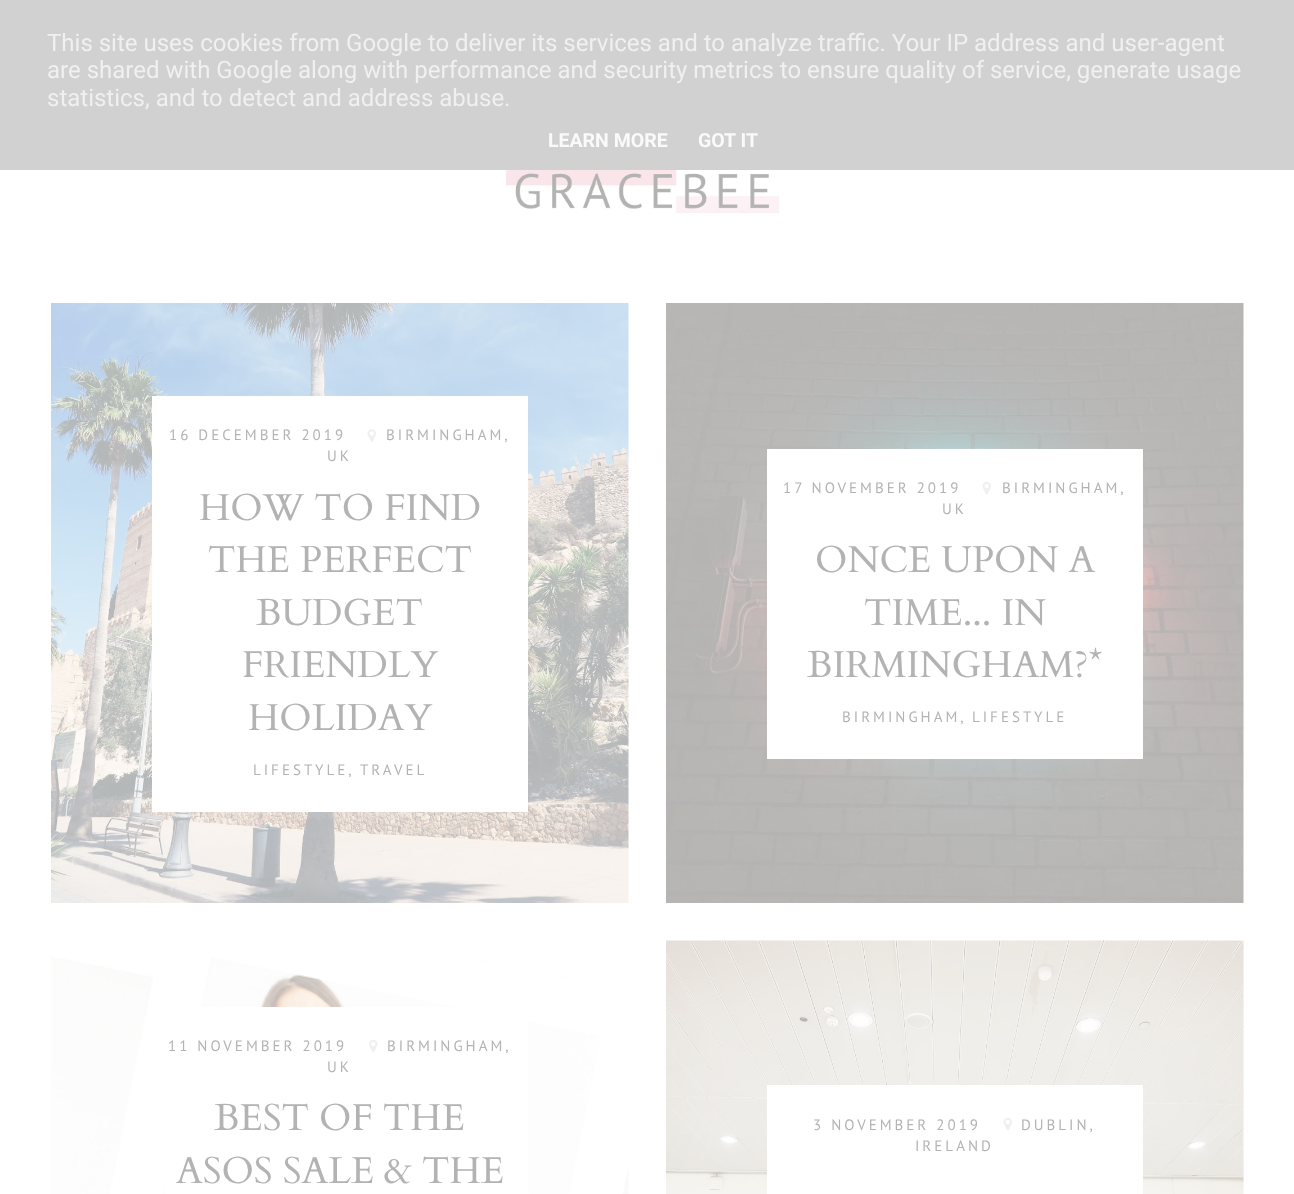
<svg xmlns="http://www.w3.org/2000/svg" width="1294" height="1194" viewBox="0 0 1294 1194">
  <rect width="100%" height="100%" fill="#fff"/>
  <path d="M0 0h1294v170H0z" fill="#d1d1d1"/>
  <image x="504" y="170" width="276" height="52" href="img/1.png"/>
  <image x="51" y="303" width="578" height="600" href="img/2.png"/>
  <path d="M152 396h376v416H152z" fill="#fff"/>
  <image x="367" y="429" width="9" height="13" href="img/3.png"/>
  <image x="666" y="303" width="578" height="600" href="img/4.png"/>
  <path d="M767 449h376v310H767z" fill="#fff"/>
  <image x="982" y="481" width="9" height="14" href="img/5.png"/>
  <image x="51" y="943" width="578" height="251" href="img/6.png"/>
  <path d="M165 1007h363v187H165z" fill="#fff"/>
  <image x="369" y="1039" width="9" height="14" href="img/7.png"/>
  <image x="666" y="940" width="578" height="254" href="img/8.png"/>
  <path d="M767 1085h376v109H767z" fill="#fff"/>
  <image x="1003" y="1117" width="9" height="14" href="img/5.png"/>
  <g font-family="Roboto" font-size="24" fill="#f0f0f0">
    <text x="47" y="51">This site uses cookies from Google to deliver its services and to analyze traffic. Your IP address and user-agent</text>
    <text x="47" y="78">are shared with Google along with performance and security metrics to ensure quality of service, generate usage</text>
    <text x="47" y="106">statistics, and to detect and address abuse.</text>
  </g>
  <g font-family="Roboto" font-size="19.5" font-weight="bold" fill="#fafafa">
    <text x="548" y="147">LEARN MORE</text>
    <text x="698" y="147">GOT IT</text>
  </g>
  <g font-family="PT Sans" font-size="15" letter-spacing="3" fill="#b3b3b3">
    <text x="169" y="440">16 DECEMBER 2019</text>
    <text x="386" y="440">BIRMINGHAM,</text>
    <text x="327" y="461">UK</text>
  </g>
  <g font-family="Cardo" font-size="37.5" fill="#b3b3b3">
    <text x="199" y="520">HOW TO FIND</text>
    <text x="208" y="572">THE PERFECT</text>
    <text x="256" y="625">BUDGET</text>
    <text x="242" y="677">FRIENDLY</text>
    <text x="248" y="730">HOLIDAY</text>
  </g>
  <g font-family="PT Sans" font-size="15" letter-spacing="3" fill="#b3b3b3">
    <text x="253" y="775">LIFESTYLE,</text>
    <text x="360" y="775">TRAVEL</text>
    <text x="783" y="493">17 NOVEMBER 2019</text>
    <text x="1002" y="493">BIRMINGHAM,</text>
    <text x="942" y="514">UK</text>
  </g>
  <g font-family="Cardo" font-size="37.5" fill="#b3b3b3">
    <text x="815" y="572">ONCE UPON A</text>
    <text x="864" y="625">TIME... IN</text>
    <text x="807" y="677">BIRMINGHAM?*</text>
  </g>
  <g font-family="PT Sans" font-size="15" letter-spacing="3" fill="#b3b3b3">
    <text x="842" y="722">BIRMINGHAM,</text>
    <text x="972" y="722">LIFESTYLE</text>
    <text x="168" y="1051">11 NOVEMBER 2019</text>
    <text x="387" y="1051">BIRMINGHAM,</text>
    <text x="327" y="1072">UK</text>
  </g>
  <g font-family="Cardo" font-size="37.5" fill="#b3b3b3">
    <text x="214" y="1130">BEST OF THE</text>
    <text x="176" y="1183">ASOS SALE &amp; THE</text>
  </g>
  <g font-family="PT Sans" font-size="15" letter-spacing="3" fill="#b3b3b3">
    <text x="813" y="1130">3 NOVEMBER 2019</text>
    <text x="1021" y="1130">DUBLIN,</text>
    <text x="915" y="1151">IRELAND</text>
  </g>
</svg>
